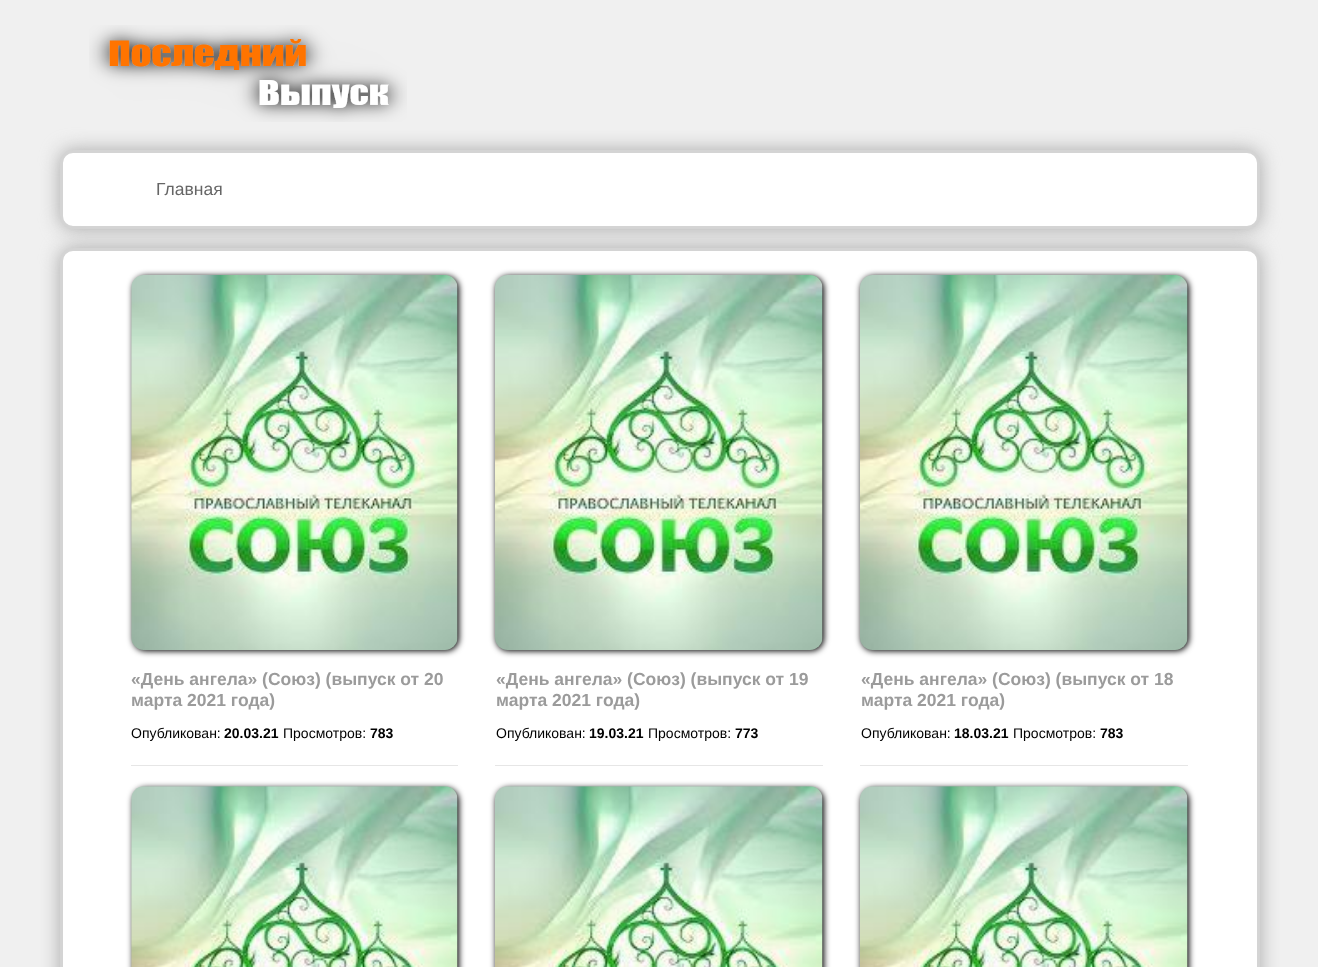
<svg xmlns="http://www.w3.org/2000/svg" width="1318" height="967" viewBox="0 0 1318 967">
  <rect width="100%" height="100%" fill="#f0f0f0"/>
  <image x="89" y="25" width="318" height="97" href="img/1.png"/>
  <rect x="60" y="150" width="1200" height="79" rx="13" fill="#a9a9a9" filter="blur(9.5px)"/>
  <rect x="61.5" y="151.5" width="1197" height="76" rx="11.5" fill="#fff" stroke="#d4d4d4" stroke-width="3"/>
  <rect x="60" y="248" width="1200" height="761" rx="13" fill="#a9a9a9" filter="blur(9.5px)"/>
  <rect x="61.5" y="249.5" width="1197" height="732" rx="11.5" fill="#fff" stroke="#d4d4d4" stroke-width="3"/>
  <rect x="133" y="276" width="326" height="375" rx="13" fill="#000" filter="blur(3px)"/>
  <image x="131" y="275" width="327" height="375" href="img/2.png"/>
  <path d="M131 765h327v1H131z" fill="#e6e6e6"/>
  <rect x="496" y="276" width="328" height="375" rx="13" fill="#000" filter="blur(3px)"/>
  <image x="495" y="275" width="328" height="375" href="img/3.png"/>
  <path d="M495 765h328v1H495z" fill="#e6e6e6"/>
  <rect x="861" y="276" width="328" height="375" rx="13" fill="#000" filter="blur(3px)"/>
  <image x="860" y="275" width="328" height="375" href="img/3.png"/>
  <path d="M860 765h328v1H860z" fill="#e6e6e6"/>
  <rect x="133" y="788" width="326" height="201" rx="13" fill="#000" filter="blur(3px)"/>
  <image x="131" y="786" width="327" height="181" href="img/4.png"/>
  <rect x="496" y="788" width="328" height="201" rx="13" fill="#000" filter="blur(3px)"/>
  <image x="495" y="786" width="328" height="181" href="img/5.png"/>
  <rect x="861" y="788" width="328" height="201" rx="13" fill="#000" filter="blur(3px)"/>
  <image x="860" y="786" width="328" height="181" href="img/6.png"/>
  <text x="156" y="195" font-family="Liberation Sans" font-size="17.5" fill="#666">Главная</text>
  <g font-family="Liberation Sans" font-size="17.5" font-weight="bold" fill="#9b9b9b">
    <text x="131" y="685">«День ангела» (Союз) (выпуск от 20</text>
    <text x="131" y="706">марта 2021 года)</text>
  </g>
  <text x="131" y="738" font-family="Liberation Sans" font-size="14" fill="#000">Опубликован:</text>
  <text x="224" y="738" font-family="Liberation Sans" font-size="14" font-weight="bold" fill="#000">20.03.21</text>
  <text x="283" y="738" font-family="Liberation Sans" font-size="14" fill="#000">Просмотров:</text>
  <text x="370" y="738" font-family="Liberation Sans" font-size="14" font-weight="bold" fill="#000">783</text>
  <g font-family="Liberation Sans" font-size="17.5" font-weight="bold" fill="#9b9b9b">
    <text x="496" y="685">«День ангела» (Союз) (выпуск от 19</text>
    <text x="496" y="706">марта 2021 года)</text>
  </g>
  <text x="496" y="738" font-family="Liberation Sans" font-size="14" fill="#000">Опубликован:</text>
  <text x="589" y="738" font-family="Liberation Sans" font-size="14" font-weight="bold" fill="#000">19.03.21</text>
  <text x="648" y="738" font-family="Liberation Sans" font-size="14" fill="#000">Просмотров:</text>
  <text x="735" y="738" font-family="Liberation Sans" font-size="14" font-weight="bold" fill="#000">773</text>
  <g font-family="Liberation Sans" font-size="17.5" font-weight="bold" fill="#9b9b9b">
    <text x="861" y="685">«День ангела» (Союз) (выпуск от 18</text>
    <text x="861" y="706">марта 2021 года)</text>
  </g>
  <text x="861" y="738" font-family="Liberation Sans" font-size="14" fill="#000">Опубликован:</text>
  <text x="954" y="738" font-family="Liberation Sans" font-size="14" font-weight="bold" fill="#000">18.03.21</text>
  <text x="1013" y="738" font-family="Liberation Sans" font-size="14" fill="#000">Просмотров:</text>
  <text x="1100" y="738" font-family="Liberation Sans" font-size="14" font-weight="bold" fill="#000">783</text>
</svg>
